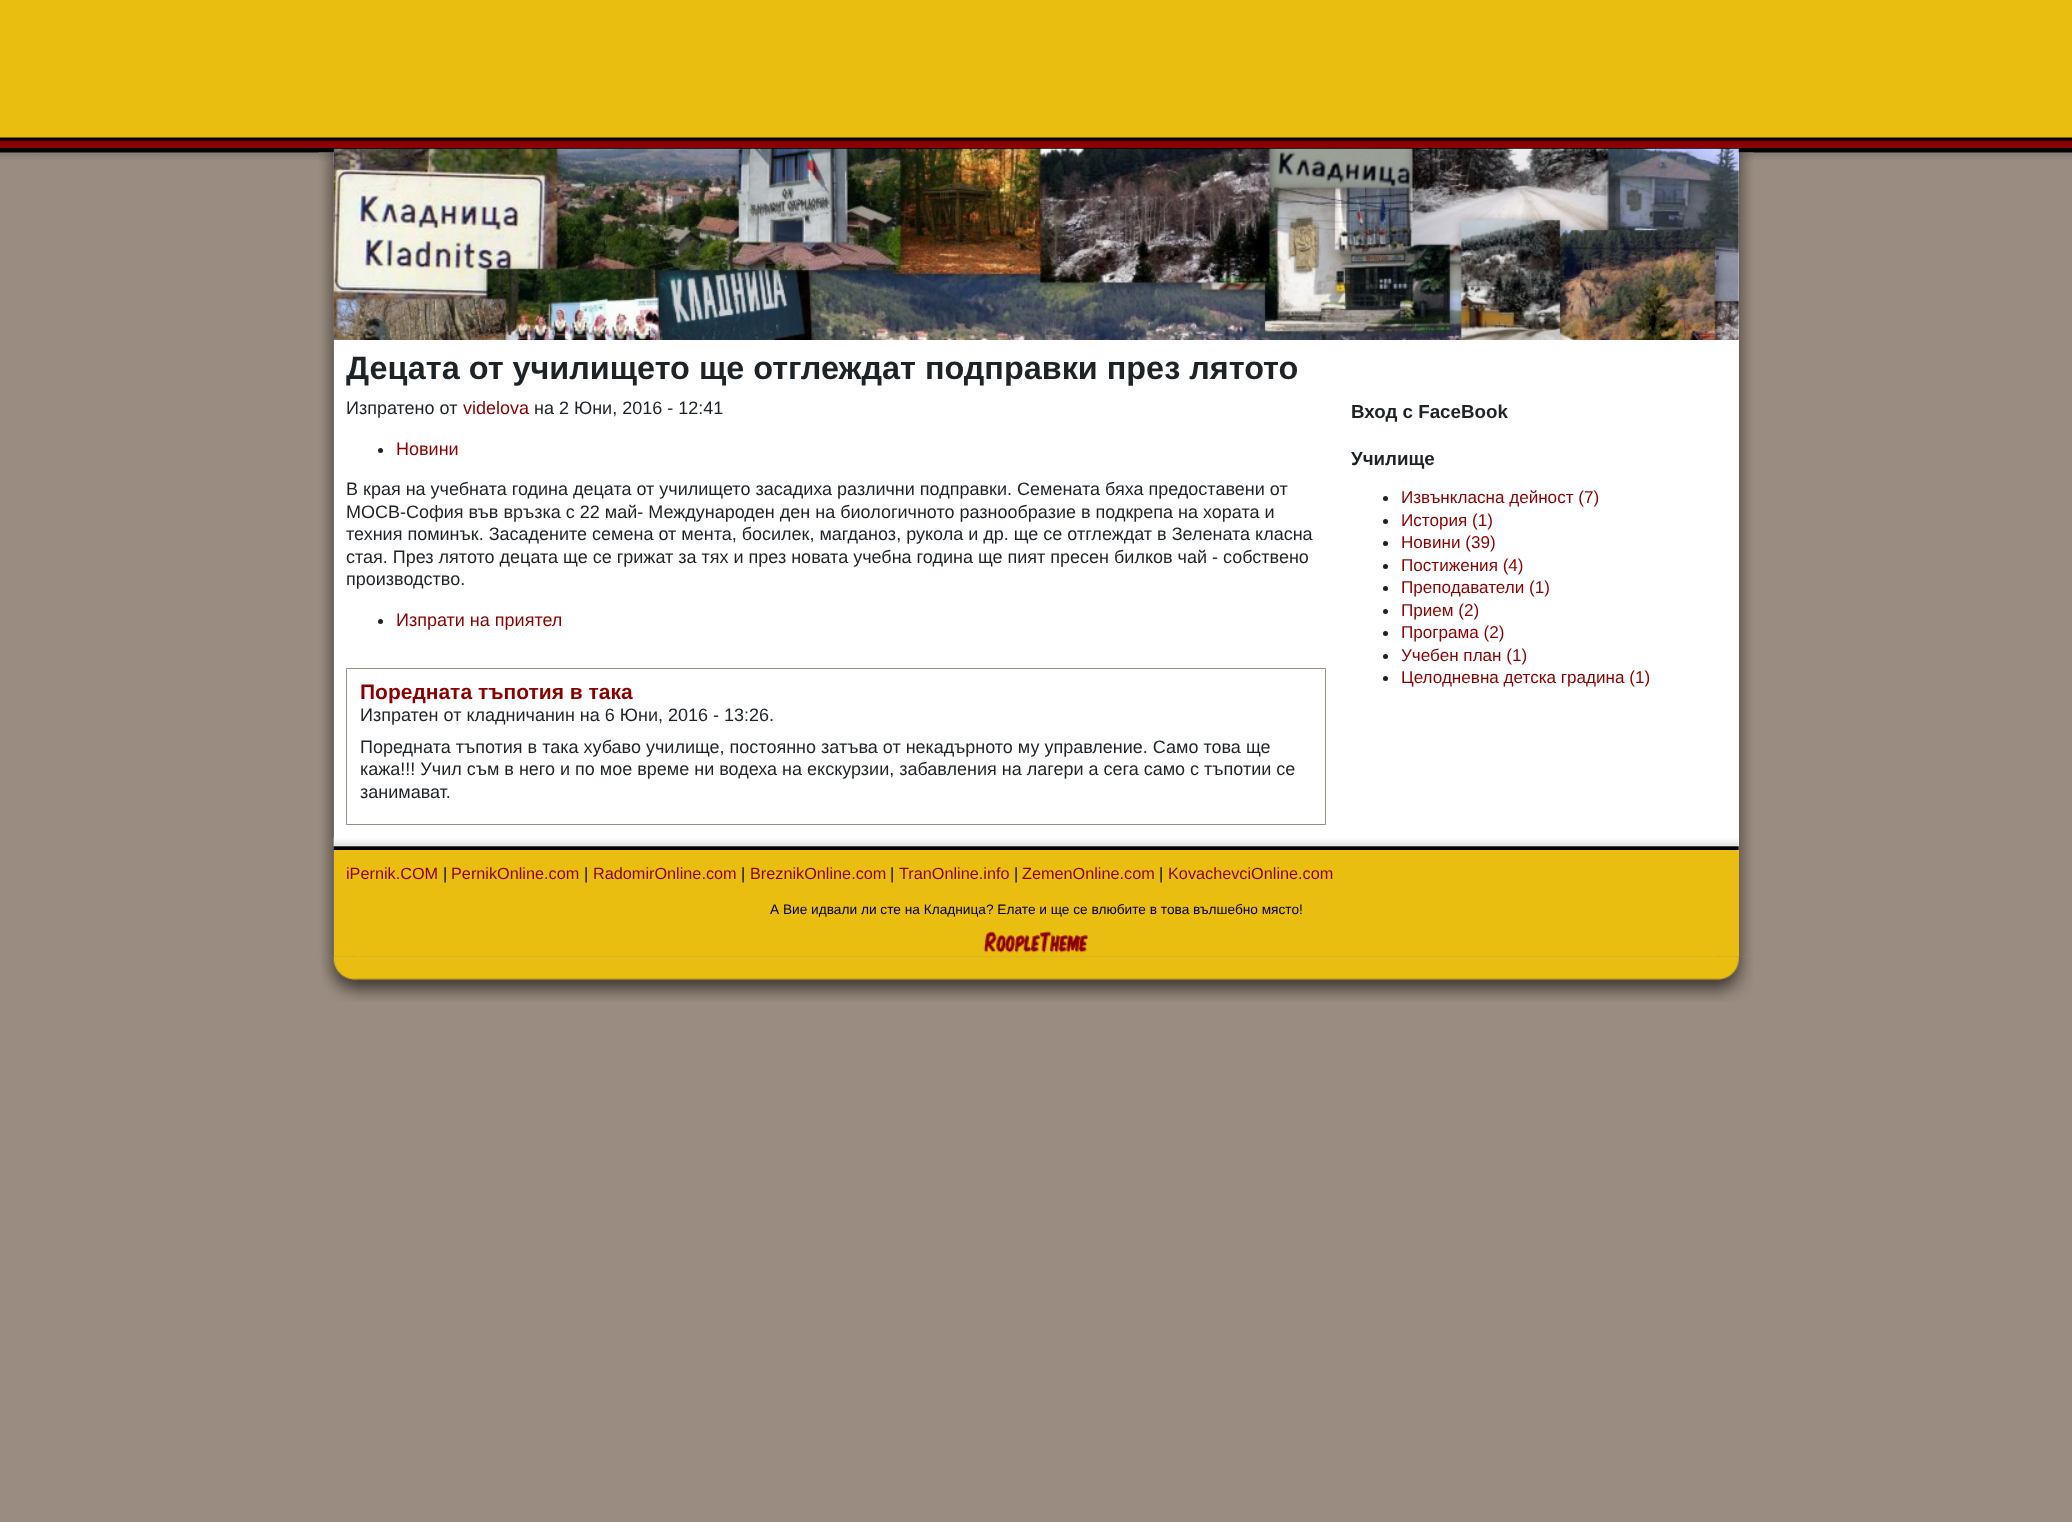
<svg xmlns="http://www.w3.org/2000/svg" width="2072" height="1522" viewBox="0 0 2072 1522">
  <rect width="100%" height="100%" fill="#9a8c80"/>
  <path d="M0 0h2072v138H0z" fill="#eabe10"/>
  <path d="M0 142h2072v6H0z" fill="#8b0000"/>
  <image x="0" y="137" width="2072" height="5" href="img/1.png"/>
  <path d="M0 148h2072v5H0z" fill="#000"/>
  <image x="0" y="152" width="2072" height="8" href="img/3.png"/>
  <image x="1738" y="152" width="16" height="805" href="img/4.png"/>
  <image x="318" y="152" width="16" height="805" href="img/5.png"/>
  <path d="M334 153h1405v697H334z" fill="#fff"/>
  <image x="333" y="152" width="1406" height="11" href="img/6.png"/>
  <image x="333" y="148" width="1406" height="192" href="img/2.png"/>
  <circle cx="380.5" cy="450.5" r="2.5" fill="#1d2326"/>
  <circle cx="380.5" cy="621.5" r="2.5" fill="#1d2326"/>
  <path d="M346.5 668.5h979v156H346.5z" fill="none" stroke="#9a8c80"/>
  <circle cx="1385.5" cy="498.5" r="2.5" fill="#1d2326"/>
  <circle cx="1385.5" cy="521.5" r="2.5" fill="#1d2326"/>
  <circle cx="1385.5" cy="543.5" r="2.5" fill="#1d2326"/>
  <circle cx="1385.5" cy="566.5" r="2.5" fill="#1d2326"/>
  <circle cx="1385.5" cy="588.5" r="2.5" fill="#1d2326"/>
  <circle cx="1385.5" cy="611.5" r="2.5" fill="#1d2326"/>
  <circle cx="1385.5" cy="633.5" r="2.5" fill="#1d2326"/>
  <circle cx="1385.5" cy="656.5" r="2.5" fill="#1d2326"/>
  <circle cx="1385.5" cy="678.5" r="2.5" fill="#1d2326"/>
  <image x="333" y="837" width="1406" height="13" href="img/7.png"/>
  <path d="M334 850h1405v106H334z" fill="#eabe10"/>
  <image x="1711" y="956" width="42" height="46" href="img/9.png"/>
  <image x="321" y="956" width="41" height="46" href="img/10.png"/>
  <image x="357" y="956" width="1358" height="46" href="img/11.png"/>
  <image x="980" y="931" width="112" height="26" href="img/8.png"/>
  <text x="346" y="379" font-family="Liberation Sans" font-size="32.4" font-weight="bold" fill="#1d2326">Децата от училището ще отглеждат подправки през лятото</text>
  <text x="346" y="414" font-family="Liberation Sans" font-size="18" fill="#1d2326">Изпратено от</text>
  <text x="463" y="414" font-family="Liberation Sans" font-size="18" fill="#8b0000">videlova</text>
  <text x="534" y="414" font-family="Liberation Sans" font-size="18" fill="#1d2326">на 2 Юни, 2016 - 12:41</text>
  <text x="396" y="455" font-family="Liberation Sans" font-size="18" fill="#8b0000">Новини</text>
  <g font-family="Liberation Sans" font-size="18" fill="#1d2326">
    <text x="346" y="495">В края на учебната година децата от училището засадиха различни подправки. Семената бяха предоставени от</text>
    <text x="346" y="518">МОСВ-София във връзка с 22 май- Международен ден на биологичното разнообразие в подкрепа на хората и</text>
    <text x="346" y="540">техния поминък. Засадените семена от мента, босилек, магданоз, рукола и др. ще се отглеждат в Зелената класна</text>
    <text x="346" y="563">стая. През лятото децата ще се грижат за тях и през новата учебна година ще пият пресен билков чай - собствено</text>
    <text x="346" y="585">производство.</text>
  </g>
  <text x="396" y="626" font-family="Liberation Sans" font-size="18" fill="#8b0000">Изпрати на приятел</text>
  <text x="360" y="699" font-family="Liberation Sans" font-size="21" font-weight="bold" fill="#8b0000">Поредната тъпотия в така</text>
  <g font-family="Liberation Sans" font-size="18" fill="#1d2326">
    <text x="360" y="721">Изпратен от кладничанин на 6 Юни, 2016 - 13:26.</text>
    <text x="360" y="753">Поредната тъпотия в така хубаво училище, постоянно затъва от некадърното му управление. Само това ще</text>
    <text x="360" y="775">кажа!!! Учил съм в него и по мое време ни водеха на екскурзии, забавления на лагери а сега само с тъпотии се</text>
    <text x="360" y="798">занимават.</text>
  </g>
  <g font-family="Liberation Sans" font-size="18.75" font-weight="bold" fill="#1d2326">
    <text x="1351" y="418">Вход с FaceBook</text>
    <text x="1351" y="465">Училище</text>
  </g>
  <g font-family="Liberation Sans" font-size="17.1" fill="#8b0000">
    <text x="1401" y="503">Извънкласна дейност (7)</text>
    <text x="1401" y="526">История (1)</text>
    <text x="1401" y="548">Новини (39)</text>
    <text x="1401" y="571">Постижения (4)</text>
    <text x="1401" y="593">Преподаватели (1)</text>
    <text x="1401" y="616">Прием (2)</text>
    <text x="1401" y="638">Програма (2)</text>
    <text x="1401" y="661">Учебен план (1)</text>
    <text x="1401" y="683">Целодневна детска градина (1)</text>
  </g>
  <text x="346" y="879" font-family="Liberation Sans" font-size="16.25" fill="#8b0000">iPernik.COM</text>
  <text x="443" y="879" font-family="Liberation Sans" font-size="16.25" fill="#000">|</text>
  <text x="451" y="879" font-family="Liberation Sans" font-size="16.25" fill="#8b0000">PernikOnline.com</text>
  <text x="584" y="879" font-family="Liberation Sans" font-size="16.25" fill="#000">|</text>
  <text x="593" y="879" font-family="Liberation Sans" font-size="16.25" fill="#8b0000">RadomirOnline.com</text>
  <text x="741" y="879" font-family="Liberation Sans" font-size="16.25" fill="#000">|</text>
  <text x="750" y="879" font-family="Liberation Sans" font-size="16.25" fill="#8b0000">BreznikOnline.com</text>
  <text x="890" y="879" font-family="Liberation Sans" font-size="16.25" fill="#000">|</text>
  <text x="899" y="879" font-family="Liberation Sans" font-size="16.25" fill="#8b0000">TranOnline.info</text>
  <text x="1014" y="879" font-family="Liberation Sans" font-size="16.25" fill="#000">|</text>
  <text x="1022" y="879" font-family="Liberation Sans" font-size="16.25" fill="#8b0000">ZemenOnline.com</text>
  <text x="1159" y="879" font-family="Liberation Sans" font-size="16.25" fill="#000">|</text>
  <text x="1168" y="879" font-family="Liberation Sans" font-size="16.25" fill="#8b0000">KovachevciOnline.com</text>
  <text x="770" y="914" font-family="Liberation Sans" font-size="13.7" fill="#000">А Вие идвали ли сте на Кладница? Елате и ще се влюбите в това вълшебно място!</text>
</svg>
